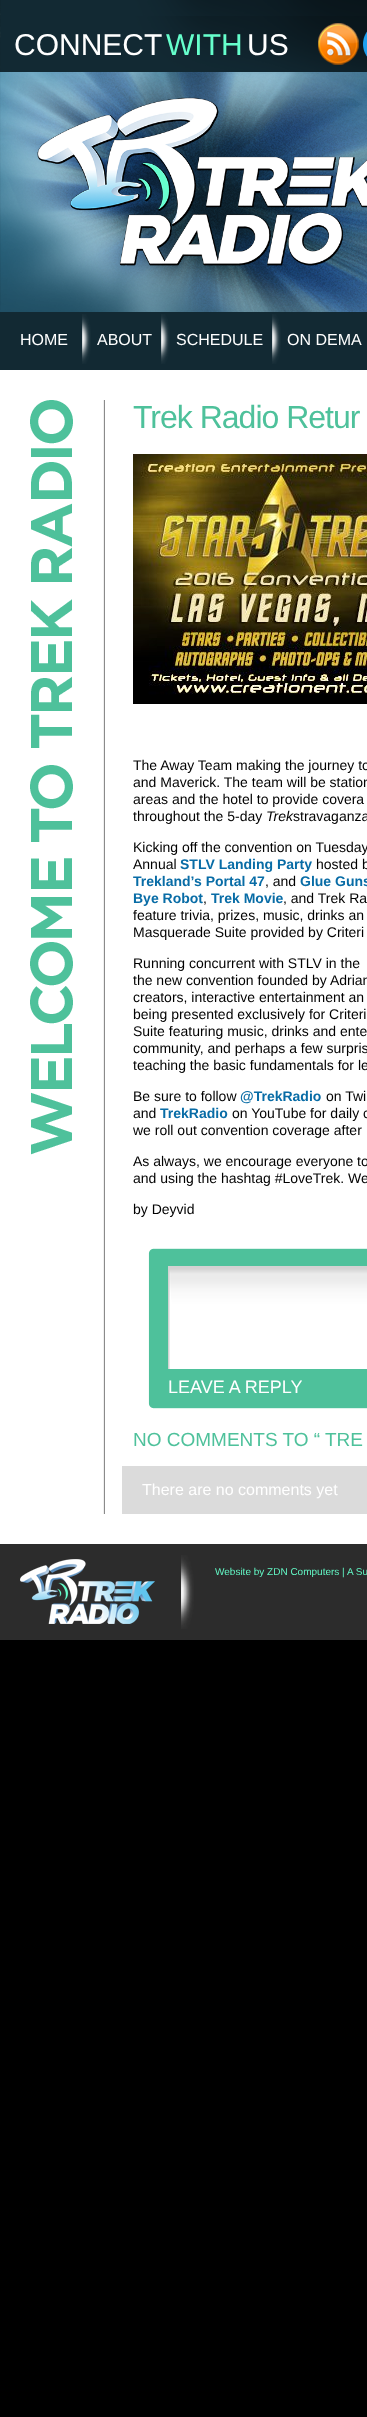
<svg xmlns="http://www.w3.org/2000/svg" width="367" height="2417" viewBox="0 0 367 2417">
  <rect width="100%" height="100%" fill="#000"/>
  <image x="0" y="0" width="367" height="172" href="img/1.png"/>
  <image x="0" y="0" width="367" height="16" href="img/2.png"/>
  <image x="0" y="16" width="367" height="58" href="img/3.png"/>
  <image x="318" y="23" width="41" height="42" href="img/4.png"/>
  <image x="363" y="31" width="4" height="26" href="img/5.png"/>
  <image x="0" y="72" width="367" height="240" href="img/6.png"/>
  <image x="37" y="97" width="330" height="169" href="img/7.png"/>
  <path d="M0 312h367v58H0z" fill="#122933"/>
  <image x="82" y="314" width="9" height="50" href="img/8.png"/>
  <image x="161" y="314" width="9" height="50" href="img/8.png"/>
  <image x="272" y="314" width="9" height="50" href="img/8.png"/>
  <path d="M0 370h367v1174H0z" fill="#fff"/>
  <image x="30" y="400" width="43" height="755" href="img/9.png"/>
  <image x="103" y="400" width="2" height="1114" href="img/10.png"/>
  <image x="133" y="454" width="234" height="250" href="img/11.png"/>
  <image x="148" y="1248" width="219" height="161" href="img/12.png"/>
  <image x="168" y="1266" width="199" height="103" href="img/13.png"/>
  <path d="M122 1466h245v48H122z" fill="#dbdbdb"/>
  <path d="M0 1544h367v96H0z" fill="#2c2c2c"/>
  <image x="181" y="1555" width="13" height="74" href="img/14.png"/>
  <image x="20" y="1559" width="135" height="65" href="img/15.png"/>
  <text x="14" y="55" font-family="Liberation Sans" font-size="30" fill="#fff">CONNECT</text>
  <text x="166" y="55" font-family="Liberation Sans" font-size="30" fill="#6fc">WITH</text>
  <text x="247" y="55" font-family="Liberation Sans" font-size="30" fill="#fff">US</text>
  <g font-family="Liberation Sans" font-size="16" fill="#fff">
    <text x="20" y="345">HOME</text>
    <text x="97" y="345">ABOUT</text>
    <text x="176" y="345">SCHEDULE</text>
    <text x="287" y="345">ON DEMA</text>
  </g>
  <text x="133" y="428" font-family="Liberation Sans" font-size="32" letter-spacing="-1" fill="#4ec19b">Trek Radio Retur</text>
  <g font-family="Liberation Sans" font-size="14" fill="#000">
    <text x="133" y="770">The Away Team making the journey to</text>
    <text x="133" y="787">and Maverick. The team will be station</text>
    <text x="133" y="804">areas and the hotel to provide covera</text>
    <text x="133" y="821">throughout the 5-day</text>
  </g>
  <text x="266" y="821" font-family="Liberation Sans" font-size="14" font-style="italic" fill="#000">Trek</text>
  <g font-family="Liberation Sans" font-size="14" fill="#000">
    <text x="293" y="821">stravaganza</text>
    <text x="133" y="852">Kicking off the convention on Tuesday</text>
    <text x="133" y="869">Annual</text>
  </g>
  <text x="180" y="869" font-family="Liberation Sans" font-size="14" font-weight="bold" fill="#086ca6">STLV Landing Party</text>
  <text x="316" y="869" font-family="Liberation Sans" font-size="14" fill="#000">hosted b</text>
  <text x="133" y="886" font-family="Liberation Sans" font-size="14" font-weight="bold" fill="#086ca6">Trekland’s Portal 47</text>
  <text x="265" y="886" font-family="Liberation Sans" font-size="14" fill="#000">, and</text>
  <g font-family="Liberation Sans" font-size="14" font-weight="bold" fill="#086ca6">
    <text x="300" y="886">Glue Guns</text>
    <text x="133" y="903">Bye Robot</text>
  </g>
  <text x="203" y="903" font-family="Liberation Sans" font-size="14" fill="#000">,</text>
  <text x="211" y="903" font-family="Liberation Sans" font-size="14" font-weight="bold" fill="#086ca6">Trek Movie</text>
  <g font-family="Liberation Sans" font-size="14" fill="#000">
    <text x="283" y="903">, and Trek Ra</text>
    <text x="133" y="920">feature trivia, prizes, music, drinks an</text>
    <text x="133" y="937">Masquerade Suite provided by Criteri</text>
    <text x="133" y="968">Running concurrent with STLV in the</text>
    <text x="133" y="985">the new convention founded by Adrian</text>
    <text x="133" y="1002">creators, interactive entertainment an</text>
    <text x="133" y="1019">being presented exclusively for Criteri</text>
    <text x="133" y="1036">Suite featuring music, drinks and ente</text>
    <text x="133" y="1053">community, and perhaps a few surpris</text>
    <text x="133" y="1070">teaching the basic fundamentals for le</text>
    <text x="133" y="1101">Be sure to follow</text>
  </g>
  <text x="240" y="1101" font-family="Liberation Sans" font-size="14" font-weight="bold" fill="#086ca6">@TrekRadio</text>
  <g font-family="Liberation Sans" font-size="14" fill="#000">
    <text x="326" y="1101">on Twi</text>
    <text x="133" y="1118">and</text>
  </g>
  <text x="160" y="1118" font-family="Liberation Sans" font-size="14" font-weight="bold" fill="#086ca6">TrekRadio</text>
  <g font-family="Liberation Sans" font-size="14" fill="#000">
    <text x="232" y="1118">on YouTube for daily c</text>
    <text x="133" y="1135">we roll out convention coverage after</text>
    <text x="133" y="1166">As always, we encourage everyone to</text>
    <text x="133" y="1183">and using the hashtag #LoveTrek. We</text>
    <text x="133" y="1214">by Deyvid</text>
  </g>
  <text x="168" y="1393" font-family="Liberation Sans" font-size="18" fill="#fff">LEAVE A REPLY</text>
  <g font-family="Liberation Sans" font-size="19" fill="#4ec19b">
    <text x="133" y="1446">NO COMMENTS TO “</text>
    <text x="325" y="1446">TRE</text>
  </g>
  <text x="142" y="1495" font-family="Liberation Sans" font-size="16" fill="#fff">There are no comments yet</text>
  <text x="215" y="1575" font-family="Liberation Sans" font-size="10" fill="#63f8c6">Website by ZDN Computers | A Su</text>
</svg>
